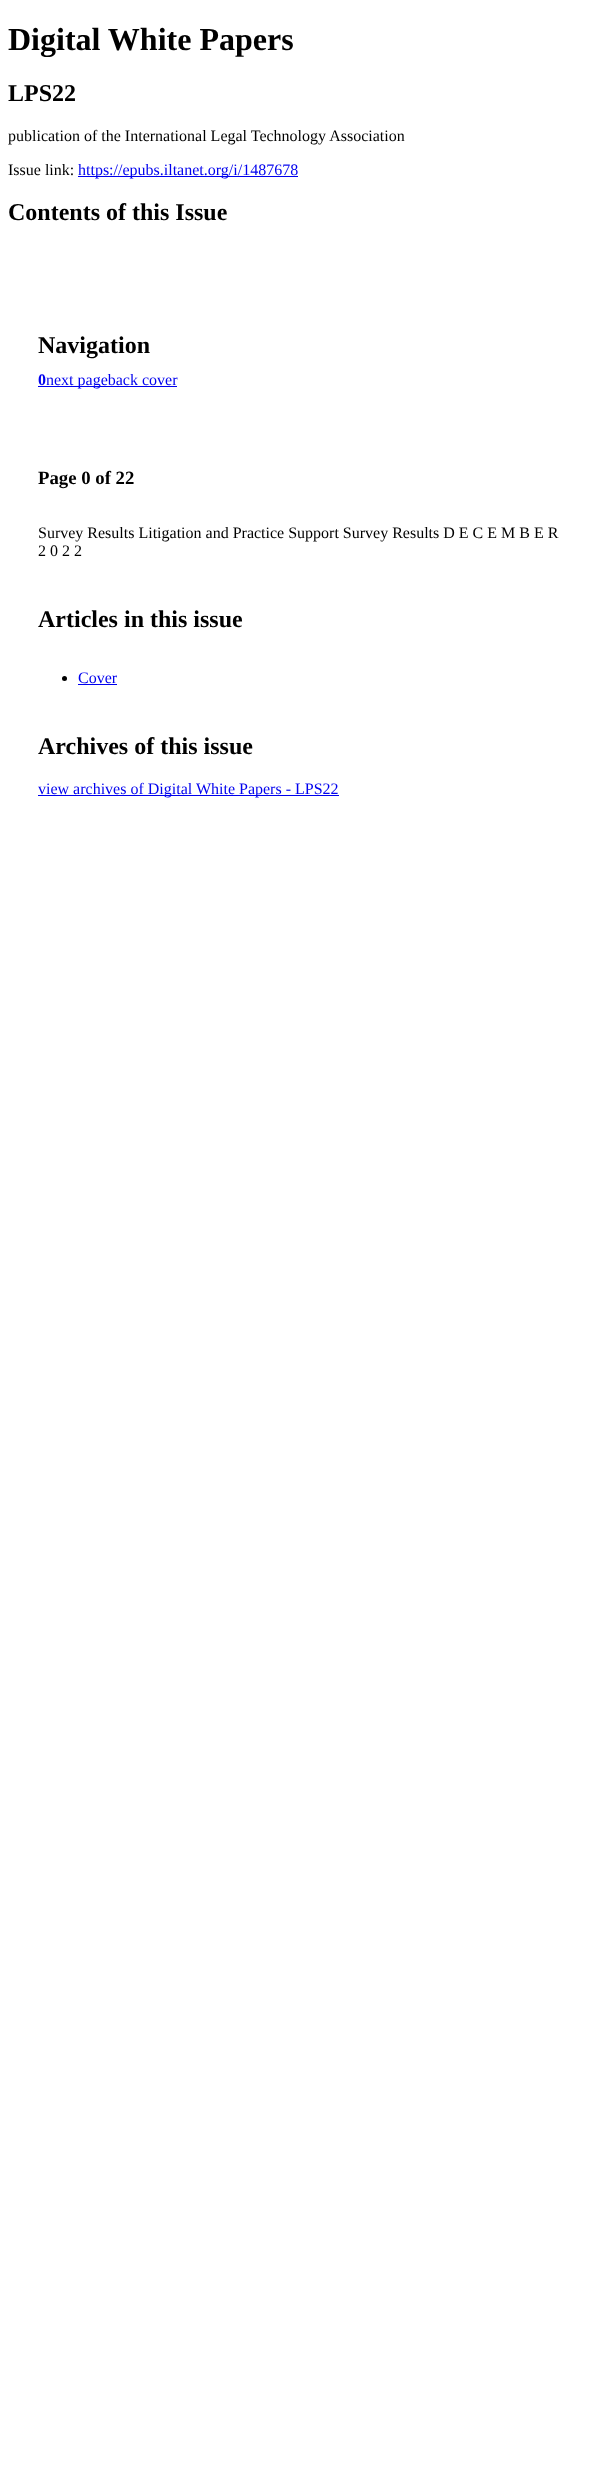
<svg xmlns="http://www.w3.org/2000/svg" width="611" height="2465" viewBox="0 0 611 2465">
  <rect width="100%" height="100%" fill="#fff"/>
  <path d="M78 176h220v1H78z" fill="#00e"/>
  <path d="M38 386h139v1H38z" fill="#00e"/>
  <circle cx="64.5" cy="678.5" r="2.5" fill="#000"/>
  <path d="M78 684h39v1H78z" fill="#00e"/>
  <path d="M38 795h301v1H38z" fill="#00e"/>
  <text x="8" y="50" font-family="Liberation Serif" font-size="32" font-weight="bold" fill="#000">Digital White Papers</text>
  <text x="8" y="101" font-family="Liberation Serif" font-size="24" font-weight="bold" fill="#000">LPS22</text>
  <g font-family="Liberation Serif" font-size="16" fill="#000">
    <text x="8" y="141">publication of the International Legal Technology Association</text>
    <text x="8" y="175">Issue link:</text>
  </g>
  <text x="78" y="175" font-family="Liberation Serif" font-size="16" fill="#00e">https://epubs.iltanet.org/i/1487678</text>
  <g font-family="Liberation Serif" font-size="24" font-weight="bold" fill="#000">
    <text x="8" y="220">Contents of this Issue</text>
    <text x="38" y="353">Navigation</text>
  </g>
  <text x="38" y="385" font-family="Liberation Serif" font-size="16" font-weight="bold" fill="#00e">0</text>
  <text x="46" y="385" font-family="Liberation Serif" font-size="16" fill="#00e">next pageback cover</text>
  <text x="38" y="484" font-family="Liberation Serif" font-size="18.75" font-weight="bold" fill="#000">Page 0 of 22</text>
  <g font-family="Liberation Serif" font-size="16" fill="#000">
    <text x="38" y="538">Survey Results Litigation and Practice Support Survey Results D E C E M B E R</text>
    <text x="38" y="556">2 0 2 2</text>
  </g>
  <text x="38" y="627" font-family="Liberation Serif" font-size="24" font-weight="bold" fill="#000">Articles in this issue</text>
  <text x="78" y="683" font-family="Liberation Serif" font-size="16" fill="#00e">Cover</text>
  <text x="38" y="754" font-family="Liberation Serif" font-size="24" font-weight="bold" fill="#000">Archives of this issue</text>
  <text x="38" y="794" font-family="Liberation Serif" font-size="16" fill="#00e">view archives of Digital White Papers - LPS22</text>
</svg>
